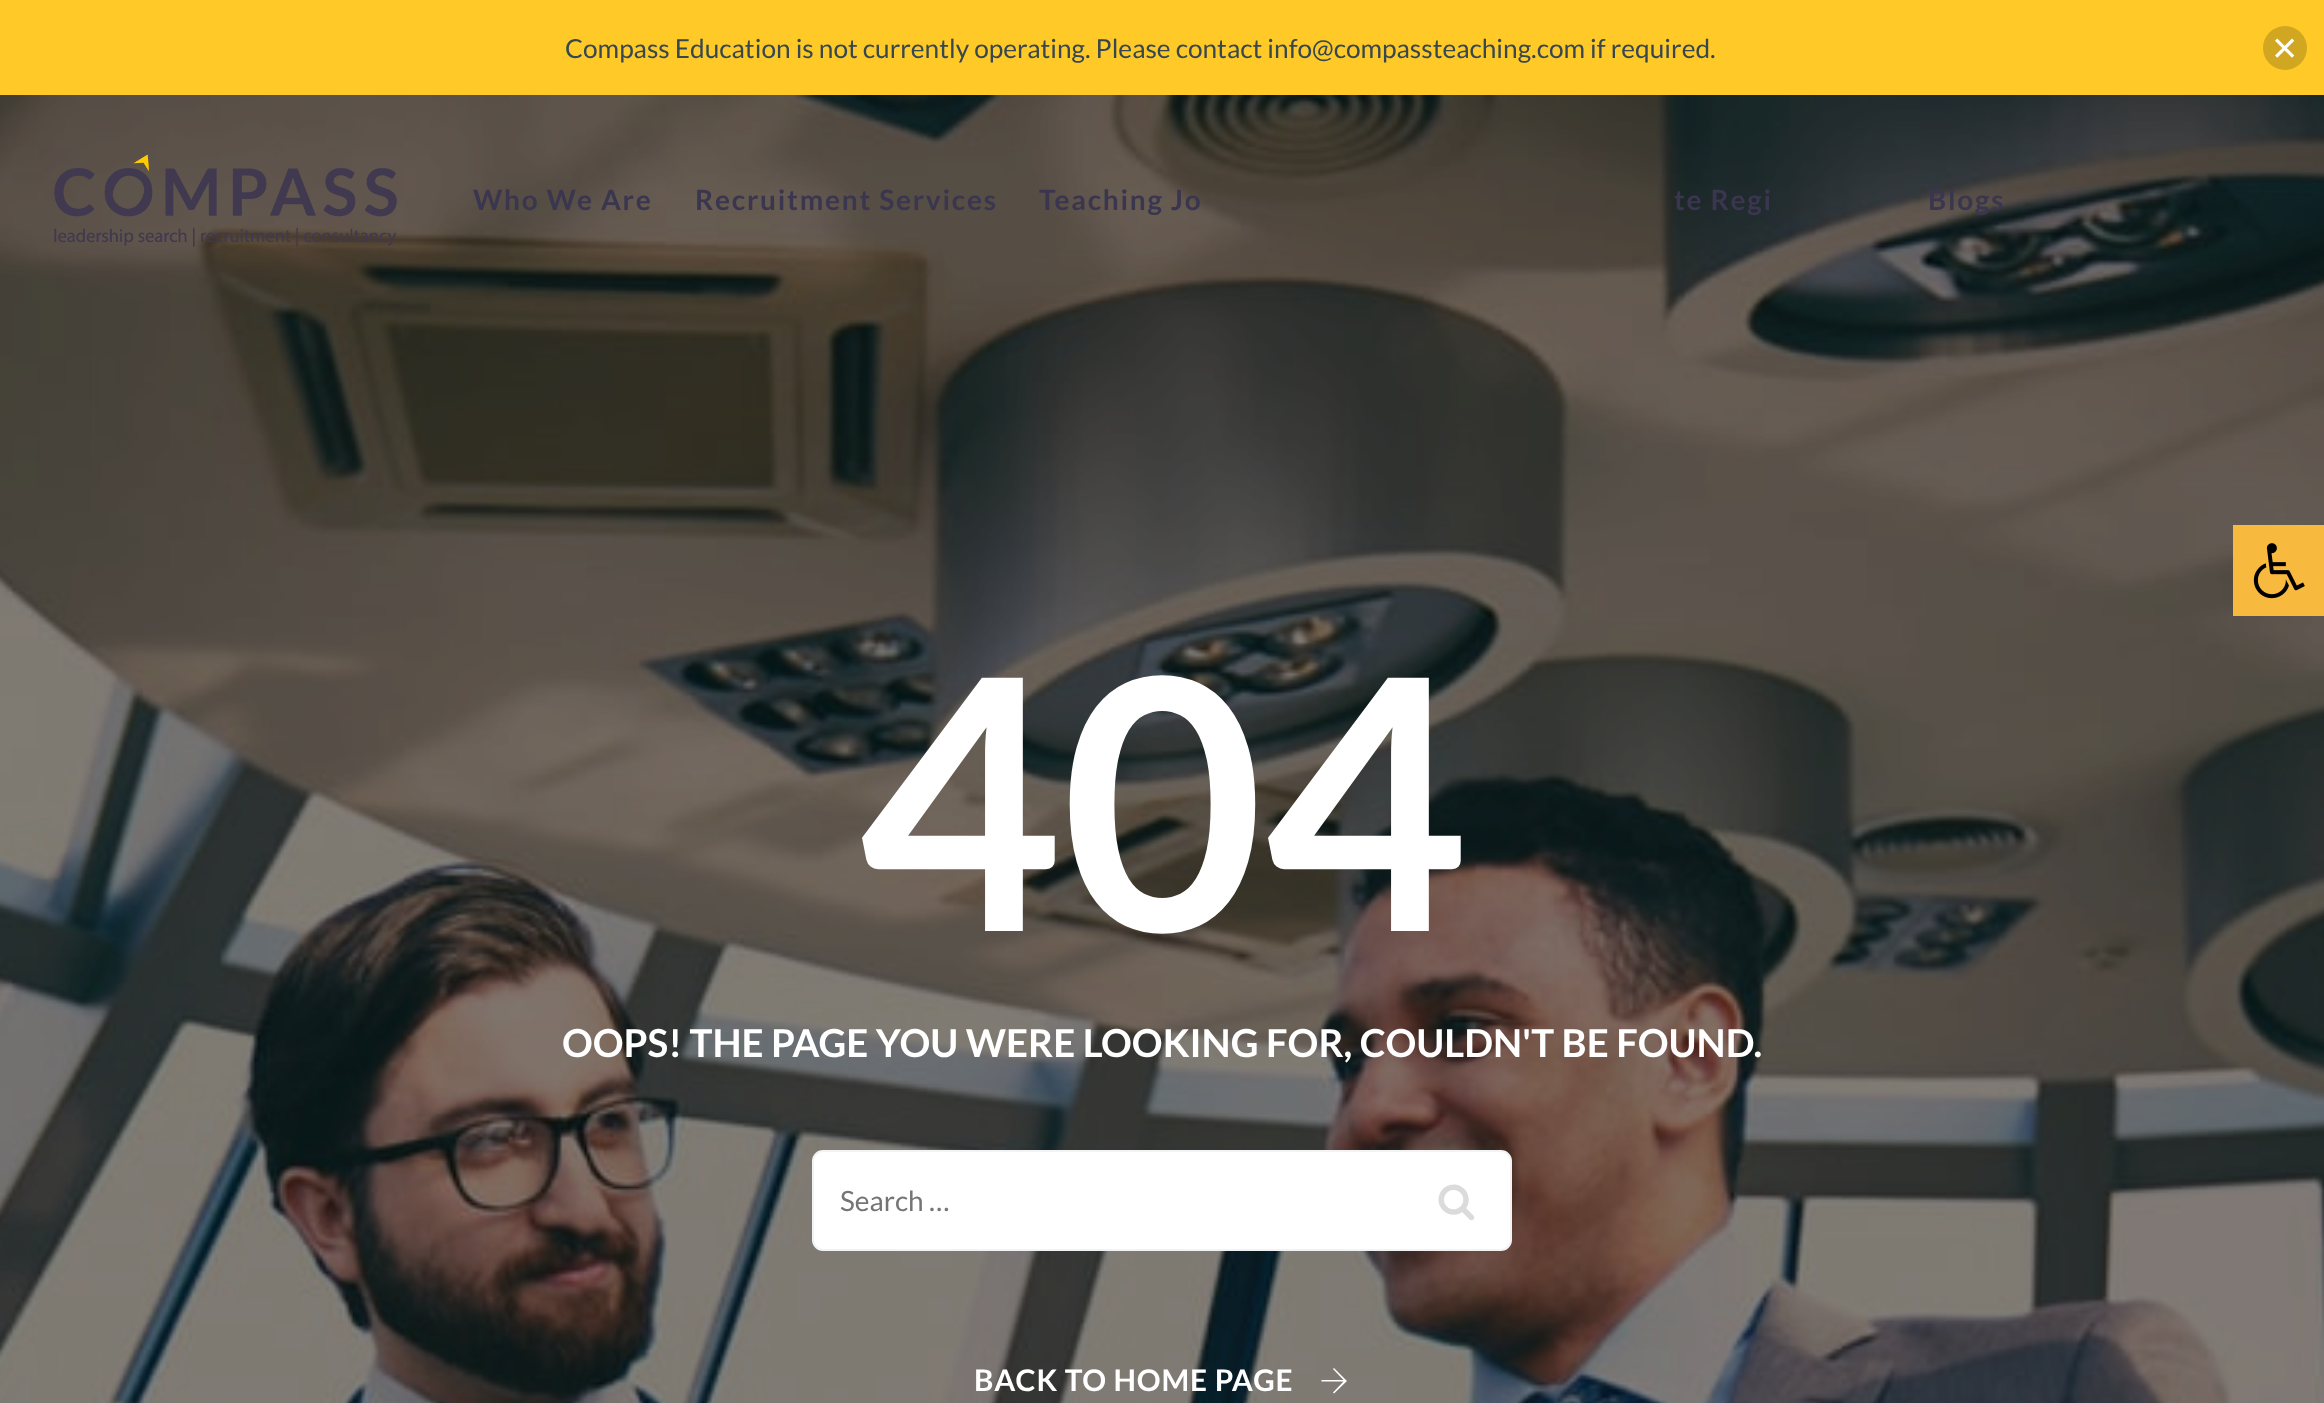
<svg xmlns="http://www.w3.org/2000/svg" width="2324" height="1403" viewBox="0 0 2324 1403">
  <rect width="100%" height="100%" fill="#fff"/>
  <path d="M0 0h2324v95H0z" fill="#ffca28"/>
  <circle cx="2285" cy="48" r="22" fill="#d1a621"/>
  <image x="2275" y="38" width="20" height="20" href="img/1.png"/>
  <image x="0" y="95" width="2324" height="1308" href="img/3.png"/>
  <image x="54" y="154" width="343" height="93" href="img/2.png"/>
  <rect x="813" y="1151" width="698" height="99" rx="10" fill="#fff" stroke="#f2f3f4" stroke-width="2"/>
  <image x="1438" y="1184" width="37" height="37" href="img/4.png"/>
  <path d="M1347 1381L1334 1393.5L1333 1392.5L1343.5 1381.5H1321.5V1380H1343.5L1333 1369L1334 1368Z" fill="#fff"/>
  <path d="M2233 525h91v91H2233z" fill="#f8b93f"/>
  <image x="2253" y="543" width="52" height="56" href="img/5.png"/>
  <text x="565" y="58" font-family="Lato" font-size="26.25" fill="#37474f">Compass Education is not currently operating. Please contact info@compassteaching.com if required.</text>
  <g font-family="Lato" font-size="28" font-weight="bold" letter-spacing="1.75" fill="#3b364f">
    <text x="473" y="210">Who We Are</text>
    <text x="695" y="210">Recruitment Services</text>
    <text x="1039" y="210">Teaching Jo</text>
    <text x="1674" y="210">te Regi</text>
    <text x="1928" y="210">Blogs</text>
  </g>
  <text x="858" y="931" font-family="Lato" font-size="350" font-weight="bold" fill="#fff">404</text>
  <text x="562" y="1057" font-family="Lato" font-size="38.5" font-weight="bold" fill="#fff">OOPS! THE PAGE YOU WERE LOOKING FOR, COULDN'T BE FOUND.</text>
  <text x="840" y="1211" font-family="Lato" font-size="28" fill="#757575">Search …</text>
  <text x="974" y="1391" font-family="Lato" font-size="29.75" font-weight="bold" letter-spacing="0.9" fill="#fff">BACK TO HOME PAGE</text>
</svg>
